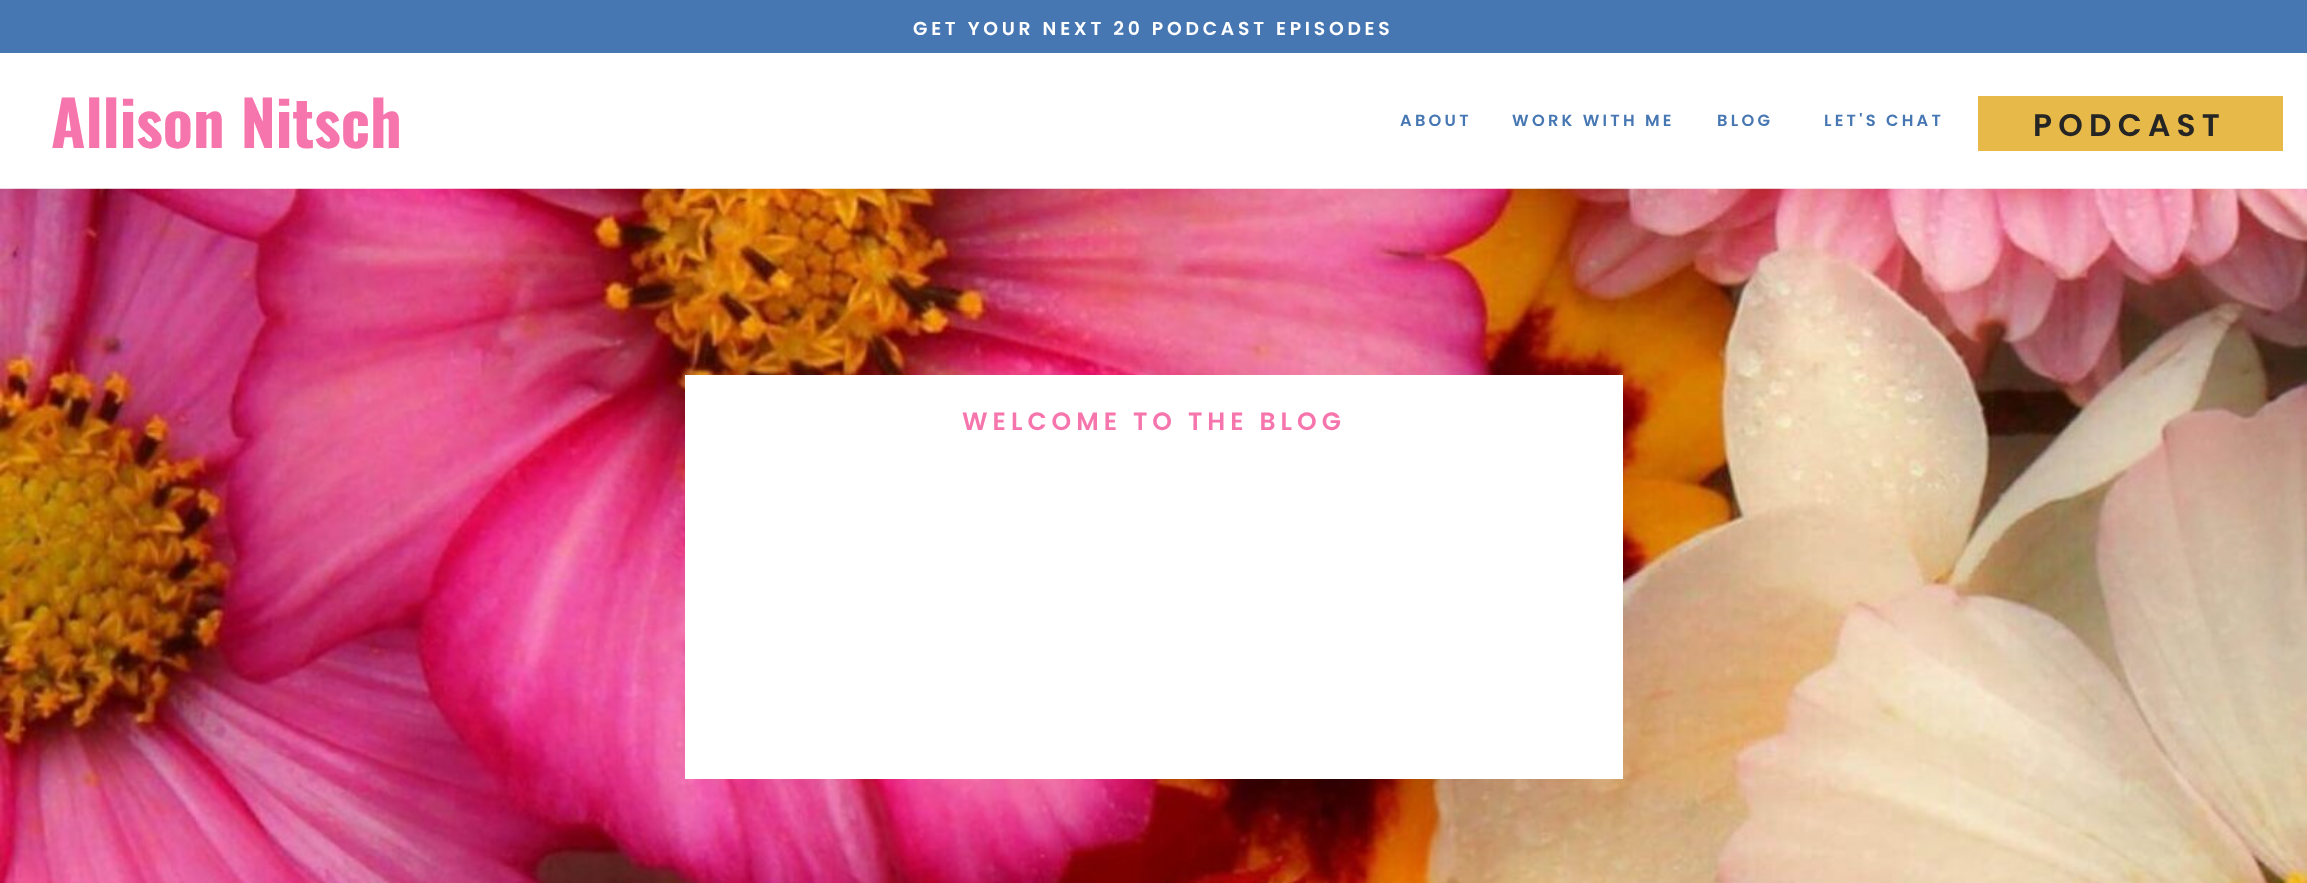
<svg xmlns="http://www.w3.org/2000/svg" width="2307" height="883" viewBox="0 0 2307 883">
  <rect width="100%" height="100%" fill="#fff"/>
  <path d="M0 0h2307v53H0z" fill="#4777b2"/>
  <path d="M1978 96h305v55H1978z" fill="#e7b948"/>
  <image x="0" y="188" width="2307" height="695" href="img/1.png"/>
  <path d="M685 375h938v404H685z" fill="#fff"/>
  <text x="913" y="35" font-family="Poppins" font-size="18.75" font-weight="600" letter-spacing="3.75" fill="#fff">GET YOUR NEXT 20 PODCAST EPISODES</text>
  <text x="51" y="148" font-family="Oswald" font-size="62.5" font-weight="bold" fill="#f775ad">Allison Nitsch</text>
  <g font-family="Poppins" font-size="16.25" font-weight="600" letter-spacing="3.25" fill="#4777b2">
    <text x="1824" y="126">LET'S CHAT</text>
    <text x="1400" y="126">ABOUT</text>
    <text x="1512" y="126">WORK WITH ME</text>
    <text x="1717" y="126">BLOG</text>
  </g>
  <text x="2033" y="136" font-family="Poppins" font-size="31.25" font-weight="600" letter-spacing="6.25" fill="#252525">PODCAST</text>
  <text x="962" y="430" font-family="Poppins" font-size="25" font-weight="600" letter-spacing="5" fill="#f775ad">WELCOME TO THE BLOG</text>
</svg>
